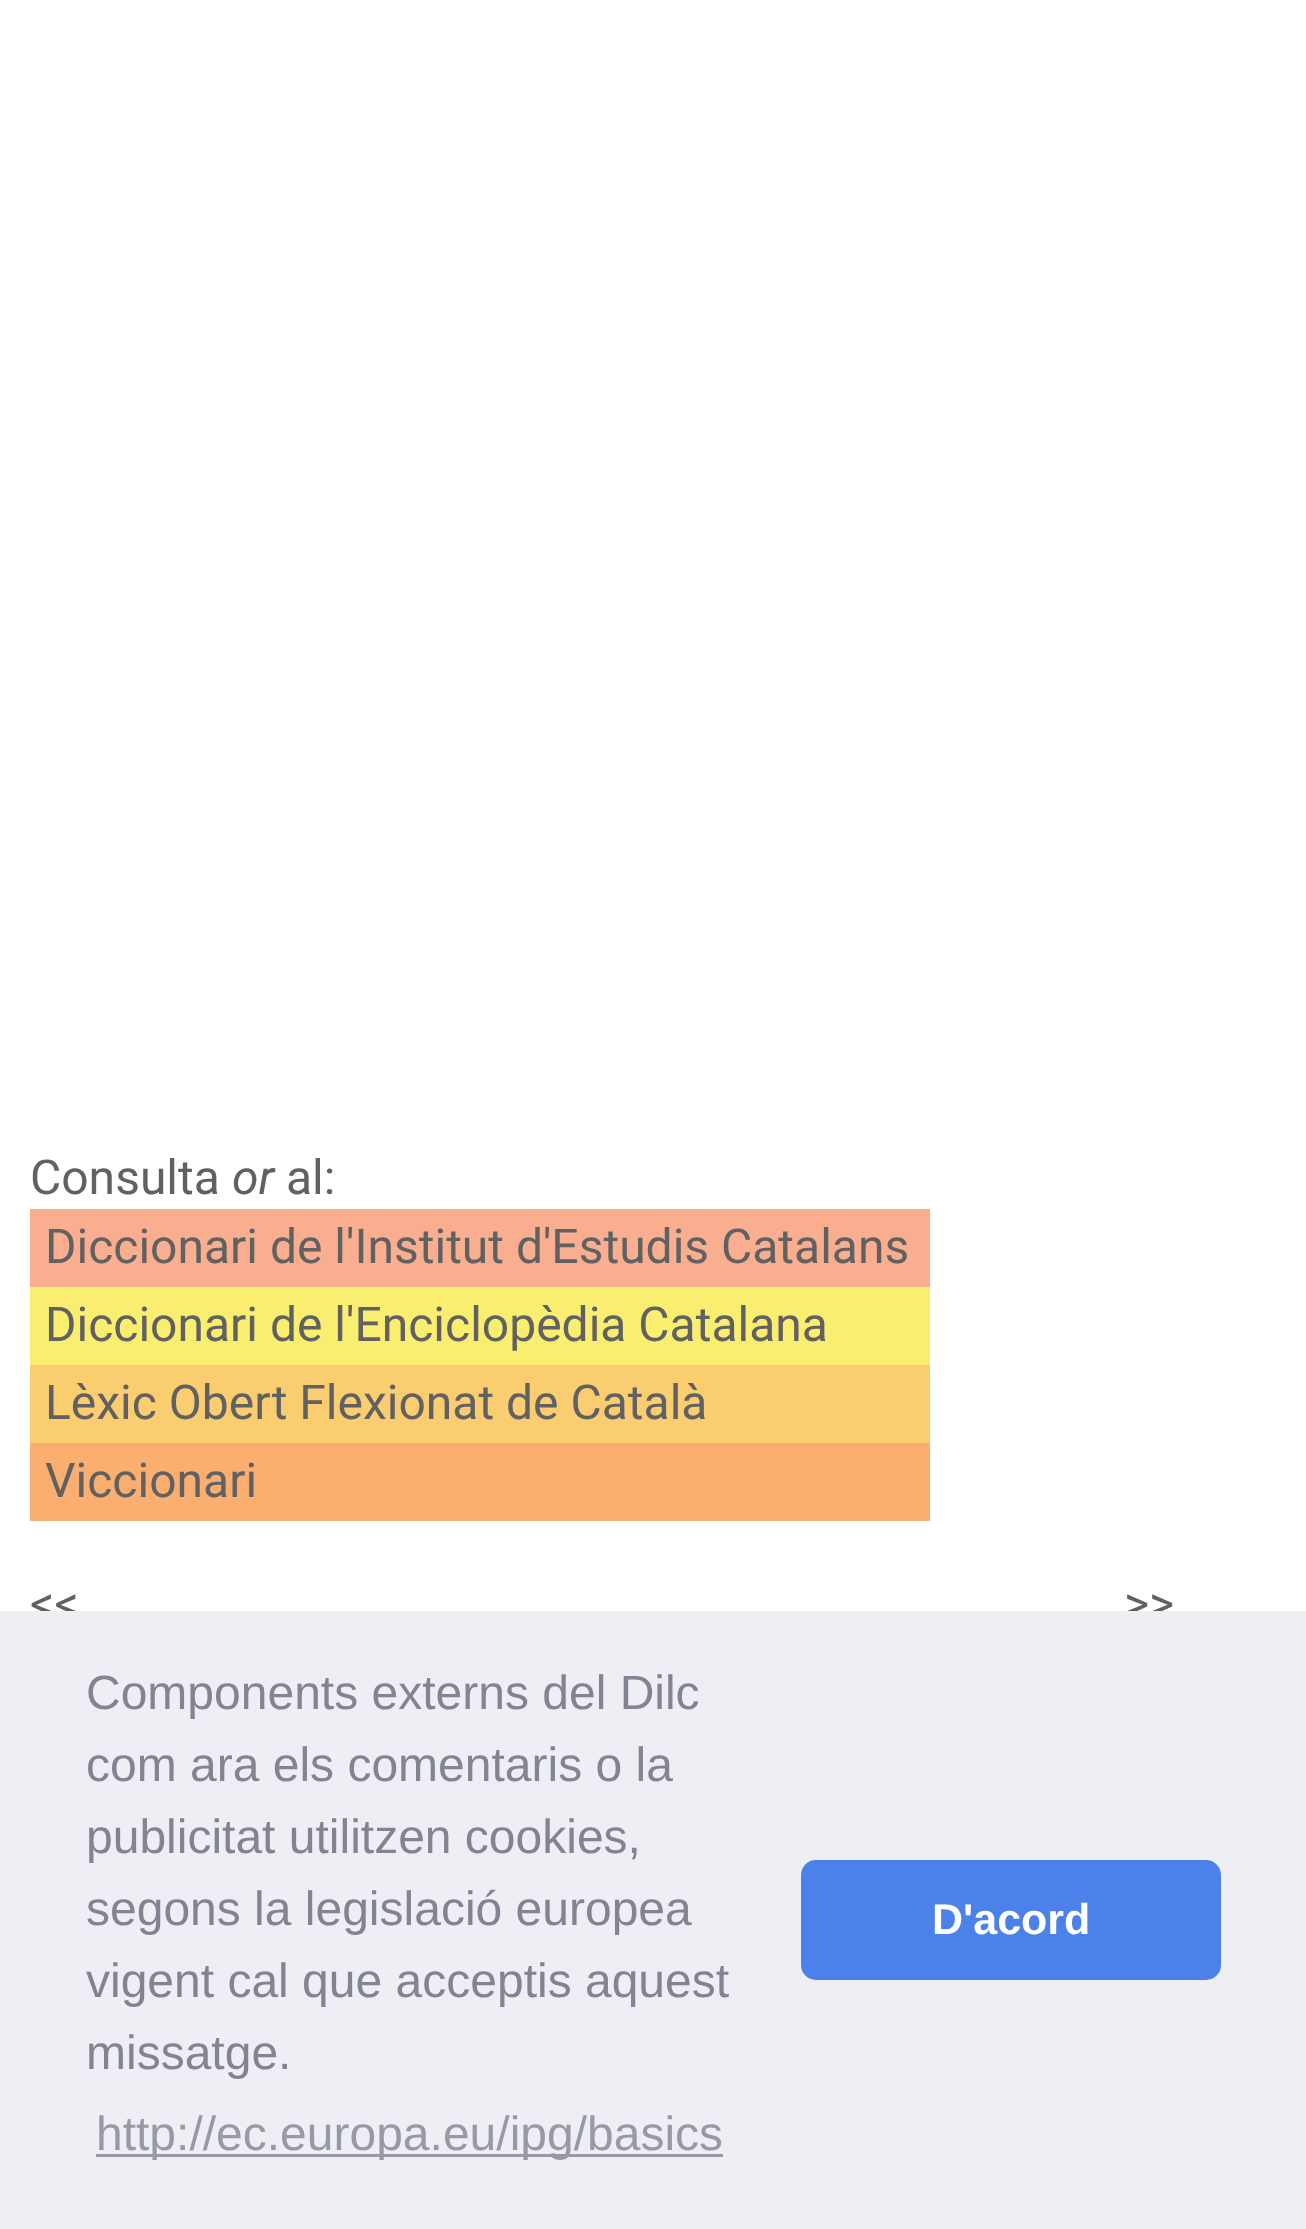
<svg xmlns="http://www.w3.org/2000/svg" width="1306" height="2229" viewBox="0 0 1306 2229">
  <rect width="100%" height="100%" fill="#fff"/>
  <path d="M30 1209h900v78H30z" fill="#faae90"/>
  <path d="M30 1287h900v78H30z" fill="#faee70"/>
  <path d="M30 1365h900v78H30z" fill="#face70"/>
  <path d="M30 1443h900v78H30z" fill="#faae70"/>
  <text x="30" y="1194" font-family="Roboto" font-size="48" fill="#616161">Consulta</text>
  <text x="232" y="1194" font-family="Roboto" font-size="48" font-style="italic" fill="#616161">or</text>
  <g font-family="Roboto" font-size="48" fill="#616161">
    <text x="286" y="1194">al:</text>
    <text x="45" y="1263">Diccionari de l'Institut d'Estudis Catalans</text>
    <text x="45" y="1341">Diccionari de l'Enciclopèdia Catalana</text>
    <text x="45" y="1419">Lèxic Obert Flexionat de Català</text>
    <text x="45" y="1497">Viccionari</text>
    <text x="30" y="1620">&lt;&lt;</text>
    <text x="1124" y="1620">&gt;&gt;</text>
  </g>
  <path d="M0 1611h1306v618H0z" fill="#edeff5"/>
  <g font-family="Liberation Sans" font-size="48" fill="#838391">
    <text x="86" y="1709">Components externs del Dilc</text>
    <text x="86" y="1781">com ara els comentaris o la</text>
    <text x="86" y="1853">publicitat utilitzen cookies,</text>
    <text x="86" y="1925">segons la legislació europea</text>
    <text x="86" y="1997">vigent cal que acceptis aquest</text>
    <text x="86" y="2069">missatge.</text>
  </g>
  <path d="M96 2154h627v3H96z" fill="#9899a5"/>
  <text x="96" y="2150" font-family="Liberation Sans" font-size="48" fill="#9899a5">http://ec.europa.eu/ipg/basics</text>
  <rect x="801" y="1860" width="420" height="120" rx="15" fill="#4b81e8"/>
  <text x="932" y="1934" font-family="Liberation Sans" font-size="43" font-weight="bold" fill="#fff">D'acord</text>
</svg>
